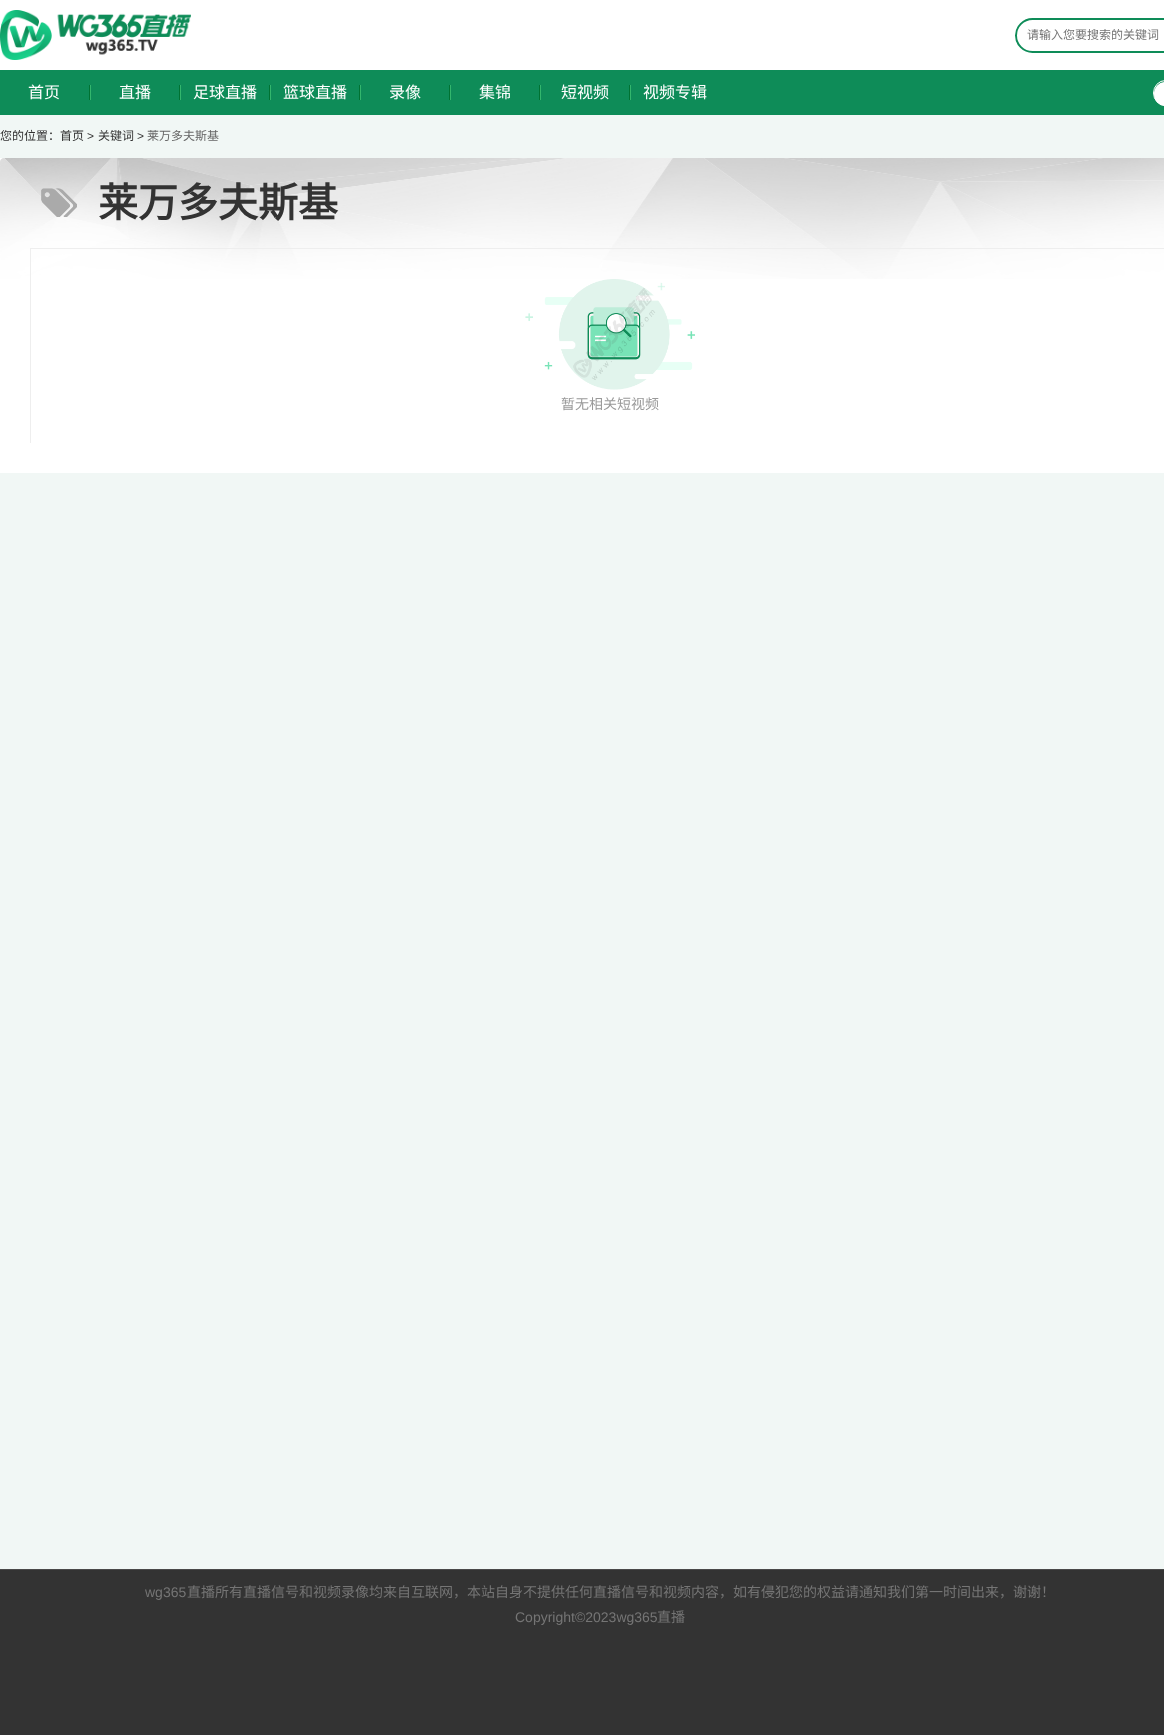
<svg xmlns="http://www.w3.org/2000/svg" width="1164" height="1735" viewBox="0 0 1164 1735">
  <rect width="100%" height="100%" fill="#f1f7f5"/>
  <path d="M0 0h1164v70H0z" fill="#fff"/>
  <image x="0" y="10" width="191" height="50" href="img/1.png"/>
  <rect x="1016" y="19" width="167" height="33" rx="16.5" fill="none" stroke="#0e8c58" stroke-width="2"/>
  <path d="M0 70h1164v45H0z" fill="#0e8c58"/>
  <path d="M89 85h1v15H89z" fill="#007232"/>
  <path d="M179 85h1v15H179z" fill="#007232"/>
  <path d="M90 85h1v15H90z" fill="#33b66d"/>
  <path d="M269 85h1v15H269z" fill="#007232"/>
  <path d="M180 85h1v15H180z" fill="#33b66d"/>
  <path d="M359 85h1v15H359z" fill="#007232"/>
  <path d="M270 85h1v15H270z" fill="#33b66d"/>
  <path d="M449 85h1v15H449z" fill="#007232"/>
  <path d="M360 85h1v15H360z" fill="#33b66d"/>
  <path d="M539 85h1v15H539z" fill="#007232"/>
  <path d="M450 85h1v15H450z" fill="#33b66d"/>
  <path d="M629 85h1v15H629z" fill="#007232"/>
  <path d="M540 85h1v15H540z" fill="#33b66d"/>
  <path d="M630 85h1v15H630z" fill="#33b66d"/>
  <rect x="1153.5" y="80.5" width="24" height="25" rx="12.5" fill="none" stroke="#fff"/>
  <rect x="1154" y="82" width="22" height="24" rx="12" fill="#fff"/>
  <path d="M0 279h1164v194H0z" fill="#fff"/>
  <image x="0" y="158" width="1164" height="121" href="img/2.png"/>
  <path d="M30 248h1134v1H30z" fill="#eee"/>
  <image x="41" y="188" width="36" height="29" href="img/3.png"/>
  <path d="M30 249h1v194H30z" fill="#eee"/>
  <image x="525" y="279" width="170" height="111" href="img/4.png"/>
  <path d="M0 1570h1164v165H0z" fill="#333"/>
  <path d="M0 1569h1164v1H0z" fill="#4a4949"/>
  <text x="1027" y="39" font-family="Noto Sans CJK SC" font-size="12" fill="#757575">请输入您要搜索的关键词</text>
  <g font-family="Noto Sans CJK SC" font-size="16" fill="#fff">
    <text x="28" y="98">首页</text>
    <text x="119" y="98">直播</text>
    <text x="193" y="98">足球直播</text>
    <text x="283" y="98">篮球直播</text>
    <text x="389" y="98">录像</text>
    <text x="479" y="98">集锦</text>
    <text x="561" y="98">短视频</text>
    <text x="643" y="98">视频专辑</text>
  </g>
  <text x="0" y="140" font-family="Noto Sans CJK SC" font-size="12" fill="#333">您的位置：首页</text>
  <text x="87" y="140" font-family="Liberation Sans" font-size="12" fill="#333">&gt;</text>
  <text x="98" y="140" font-family="Noto Sans CJK SC" font-size="12" fill="#333">关键词</text>
  <text x="137" y="140" font-family="Liberation Sans" font-size="12" fill="#333">&gt;</text>
  <text x="147" y="140" font-family="Noto Sans CJK SC" font-size="12" fill="#666">莱万多夫斯基</text>
  <text x="98" y="217" font-family="Noto Sans CJK SC" font-size="40" font-weight="bold" fill="#333">莱万多夫斯基</text>
  <text x="561" y="409" font-family="Noto Sans CJK SC" font-size="14" fill="#999">暂无相关短视频</text>
  <text x="145" y="1597" font-family="Liberation Sans" font-size="14" fill="#757575">wg365</text>
  <text x="187" y="1597" font-family="Noto Sans CJK SC" font-size="14" fill="#757575">直播所有直播信号和视频录像均来自互联网，本站自身不提供任何直播信号和视频内容，如有侵犯您的权益请通知我们第一时间出来，谢谢！</text>
  <text x="515" y="1622" font-family="Liberation Sans" font-size="14" fill="#757575">Copyright©2023wg365</text>
  <text x="657" y="1622" font-family="Noto Sans CJK SC" font-size="14" fill="#757575">直播</text>
</svg>
